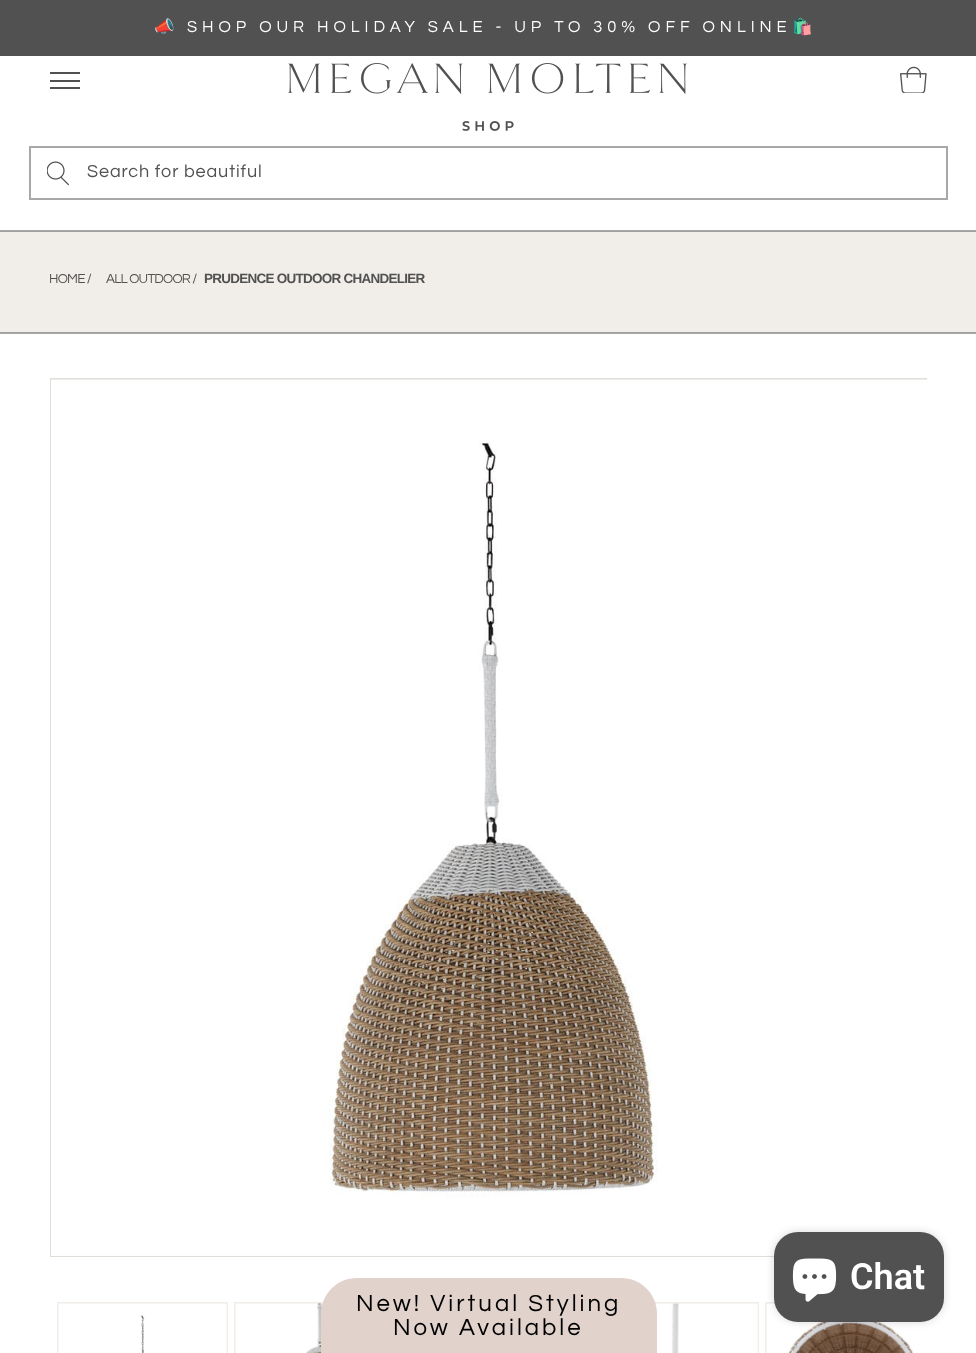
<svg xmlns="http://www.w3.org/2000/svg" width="976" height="1353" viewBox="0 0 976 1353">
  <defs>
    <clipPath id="clip1"><path d="M50 378h877v879H50z"/></clipPath>
    <clipPath id="clip2"><path d="M50 1302h877v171H50z"/></clipPath>
  </defs>
  <rect width="100%" height="100%" fill="#fff"/>
  <path d="M0 333h976v1H0z" fill="#a8a8a8"/>
  <path d="M0 0h976v56H0z" fill="#515151"/>
  <path d="M0 230h976v1H0z" fill="#a8a8a8"/>
  <path d="M50 72h30v2H50z" fill="#515151"/>
  <path d="M50 80h30v2H50z" fill="#515151"/>
  <path d="M50 87h30v2H50z" fill="#515151"/>
  <image x="288" y="63" width="399" height="68" href="img/1.png"/>
  <image x="900" y="66" width="27" height="27" href="img/2.png"/>
  <path d="M30 147h917v52H30z" fill="none" stroke="#a8a8a8" stroke-width="2"/>
  <image x="47" y="161" width="22" height="25" href="img/3.png"/>
  <path d="M0 232h976v100H0z" fill="#f1eee9"/>
  <path d="M0 231h976v1H0z" fill="#a1a09d"/>
  <path d="M0 332h976v1H0z" fill="#a1a09d"/>
  <g clip-path="url(#clip1)">
    <path d="M51 379h877v877H51z" fill="none" stroke="#e1ddd8" stroke-width="2"/>
  </g>
  <image x="51" y="379" width="876" height="877" href="img/4.png"/>
  <path d="M58 1303h169v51H58z" fill="none" stroke="#f1eee9" stroke-width="2"/>
  <image x="58" y="1303" width="169" height="50" href="img/5.png"/>
  <path d="M235 1303h169v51H235z" fill="none" stroke="#f1eee9" stroke-width="2"/>
  <image x="235" y="1303" width="88" height="50" href="img/6.png"/>
  <path d="M589 1303h169v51H589z" fill="none" stroke="#f1eee9" stroke-width="2"/>
  <image x="655" y="1303" width="103" height="50" href="img/7.png"/>
  <g clip-path="url(#clip2)">
    <path d="M766 1303h169v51H766z" fill="none" stroke="#f1eee9" stroke-width="2"/>
  </g>
  <image x="766" y="1303" width="161" height="50" href="img/8.png"/>
  <rect x="774" y="1232" width="170" height="90" rx="24" fill="#00000026" filter="blur(4px)"/>
  <rect x="774" y="1232" width="170" height="90" rx="24" fill="#515151"/>
  <image x="792" y="1258" width="45" height="44" href="img/9.png"/>
  <path d="M357 1278H621C641 1278 657 1294 657 1314V1353H321V1314C321 1294 337 1278 357 1278Z" fill="#e2d2cc"/>
  <text x="154" y="32" font-family="Noto Color Emoji" font-size="16.5" letter-spacing="4.95" fill="#fff">📣</text>
  <text x="187" y="32" word-spacing="-0.5" font-family="Questrial" font-size="16.5" letter-spacing="4.95" fill="#fff">SHOP OUR HOLIDAY SALE - UP TO 30% OFF ONLINE</text>
  <text x="792" y="32" font-family="Noto Color Emoji" font-size="16.5" letter-spacing="4.95" fill="#fff">🛍️</text>
  <text x="87" y="177" font-family="Questrial" font-size="18" letter-spacing="0.9" fill="#515151">Search for beautiful</text>
  <g font-family="Questrial" font-size="13.5" letter-spacing="-0.75" fill="#515151">
    <text x="49" y="283">HOME /</text>
    <text x="106" y="283">ALL OUTDOOR /</text>
  </g>
  <text x="204" y="283" font-family="Liberation Sans" font-size="13.5" font-weight="bold" letter-spacing="-0.75" fill="#515151">PRUDENCE OUTDOOR CHANDELIER</text>
  <text x="850" y="1289" font-family="Roboto" font-size="36" font-weight="600" fill="#fff">Chat</text>
  <g font-family="Questrial" font-size="24" letter-spacing="3" fill="#000">
    <text x="356" y="1311">New! Virtual Styling</text>
    <text x="393" y="1335">Now Available</text>
  </g>
</svg>
